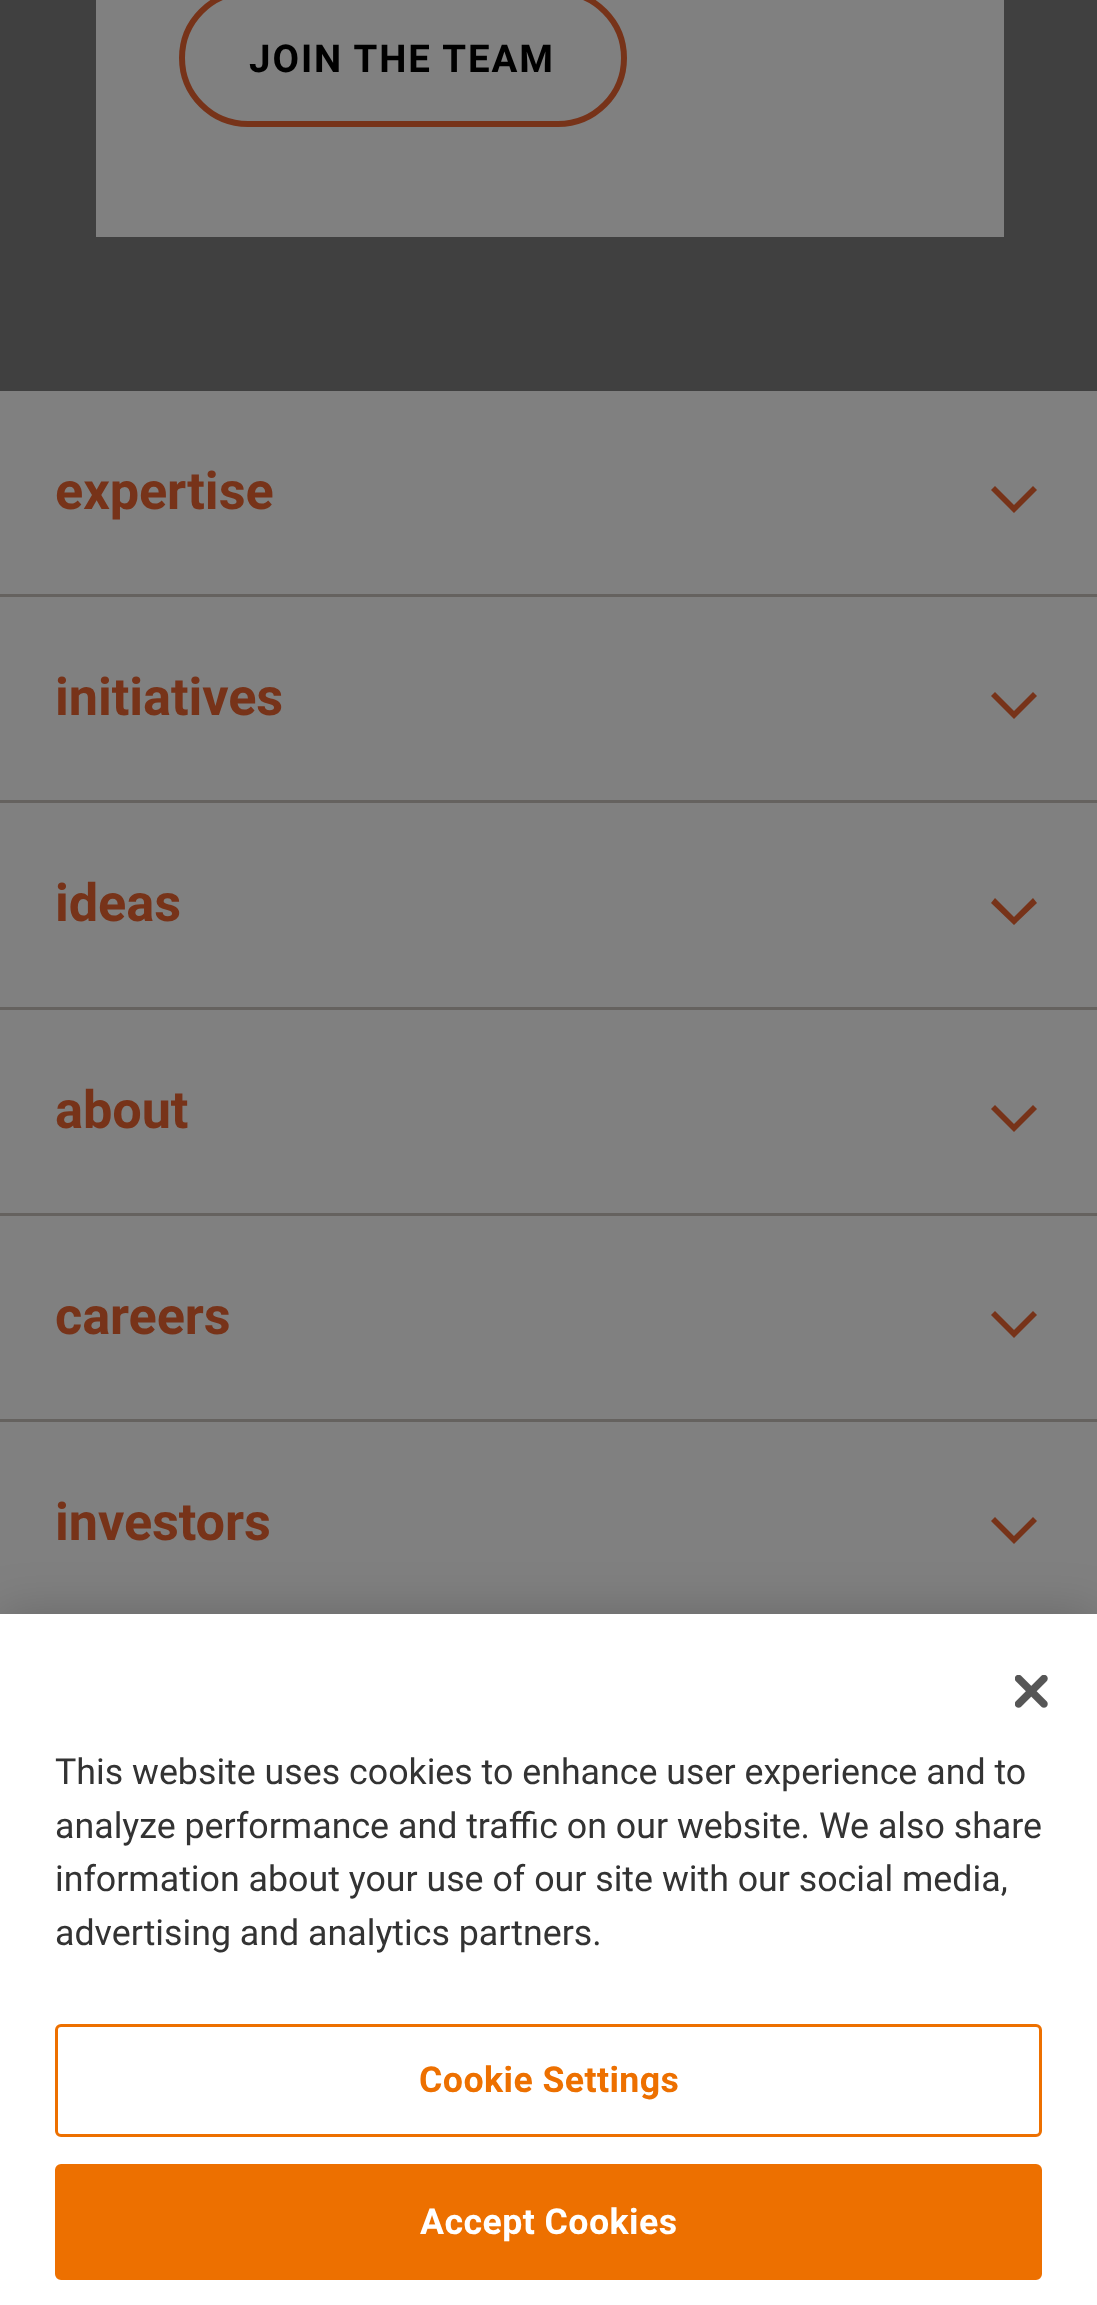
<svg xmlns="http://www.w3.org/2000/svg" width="1097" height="2305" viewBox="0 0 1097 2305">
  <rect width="100%" height="100%" fill="#808080"/>
  <path d="M0 0h1097v391H0z" fill="#404040"/>
  <path d="M96 0h908v237H96z" fill="#808080"/>
  <rect x="182" y="-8" width="442" height="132" rx="66" fill="none" stroke="#773319" stroke-width="6"/>
  <path d="M0 594h1097v3H0z" fill="#65625f"/>
  <path d="M991 490L995 486L1014 505L1033 486L1037 490L1014 513Z" fill="#773319"/>
  <path d="M0 800h1097v3H0z" fill="#65625f"/>
  <path d="M991 696L995 692L1014 711L1033 692L1037 696L1014 719Z" fill="#773319"/>
  <path d="M0 1007h1097v3H0z" fill="#65625f"/>
  <path d="M991 903L995 898L1014 917L1033 898L1037 903L1014 925Z" fill="#773319"/>
  <path d="M0 1213h1097v3H0z" fill="#65625f"/>
  <path d="M991 1109L995 1105L1014 1124L1033 1105L1037 1109L1014 1132Z" fill="#773319"/>
  <path d="M0 1419h1097v3H0z" fill="#65625f"/>
  <path d="M991 1315L995 1311L1014 1330L1033 1311L1037 1315L1014 1338Z" fill="#773319"/>
  <path d="M991 1521L995 1517L1014 1536L1033 1517L1037 1521L1014 1544Z" fill="#773319"/>
  <path d="M0 1614h1097v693H0z" fill="#00000033" filter="blur(25px)"/>
  <path d="M0 1614h1097v691H0z" fill="#fff"/>
  <image x="1015" y="1675" width="33" height="33" href="img/1.png"/>
  <rect x="56.5" y="2025.5" width="984" height="110" rx="4.5" fill="none" stroke="#ed7000" stroke-width="3"/>
  <rect x="56.5" y="2165.5" width="984" height="113" rx="4.5" fill="#ed7000" stroke="#ed7000" stroke-width="3"/>
  <text x="249" y="72" font-family="Roboto" font-size="38.5" font-weight="bold" letter-spacing="1.9" fill="#000">JOIN THE TEAM</text>
  <g font-family="Roboto" font-size="52.25" font-weight="bold" letter-spacing="-0.1" fill="#773319">
    <text x="55" y="509">expertise</text>
    <text x="55" y="715">initiatives</text>
    <text x="55" y="921">ideas</text>
    <text x="55" y="1128">about</text>
    <text x="55" y="1334">careers</text>
    <text x="55" y="1540">investors</text>
  </g>
  <g font-family="Roboto" font-size="35.75" fill="#333">
    <text x="55" y="1784">This website uses cookies to enhance user experience and to</text>
    <text x="55" y="1838">analyze performance and traffic on our website. We also share</text>
    <text x="55" y="1891">information about your use of our site with our social media,</text>
    <text x="55" y="1945">advertising and analytics partners.</text>
  </g>
  <text x="419" y="2092" font-family="Roboto" font-size="35.75" font-weight="bold" letter-spacing="0.4" fill="#ed7000">Cookie Settings</text>
  <text x="420" y="2234" font-family="Roboto" font-size="35.75" font-weight="bold" letter-spacing="0.4" fill="#fff">Accept Cookies</text>
</svg>
